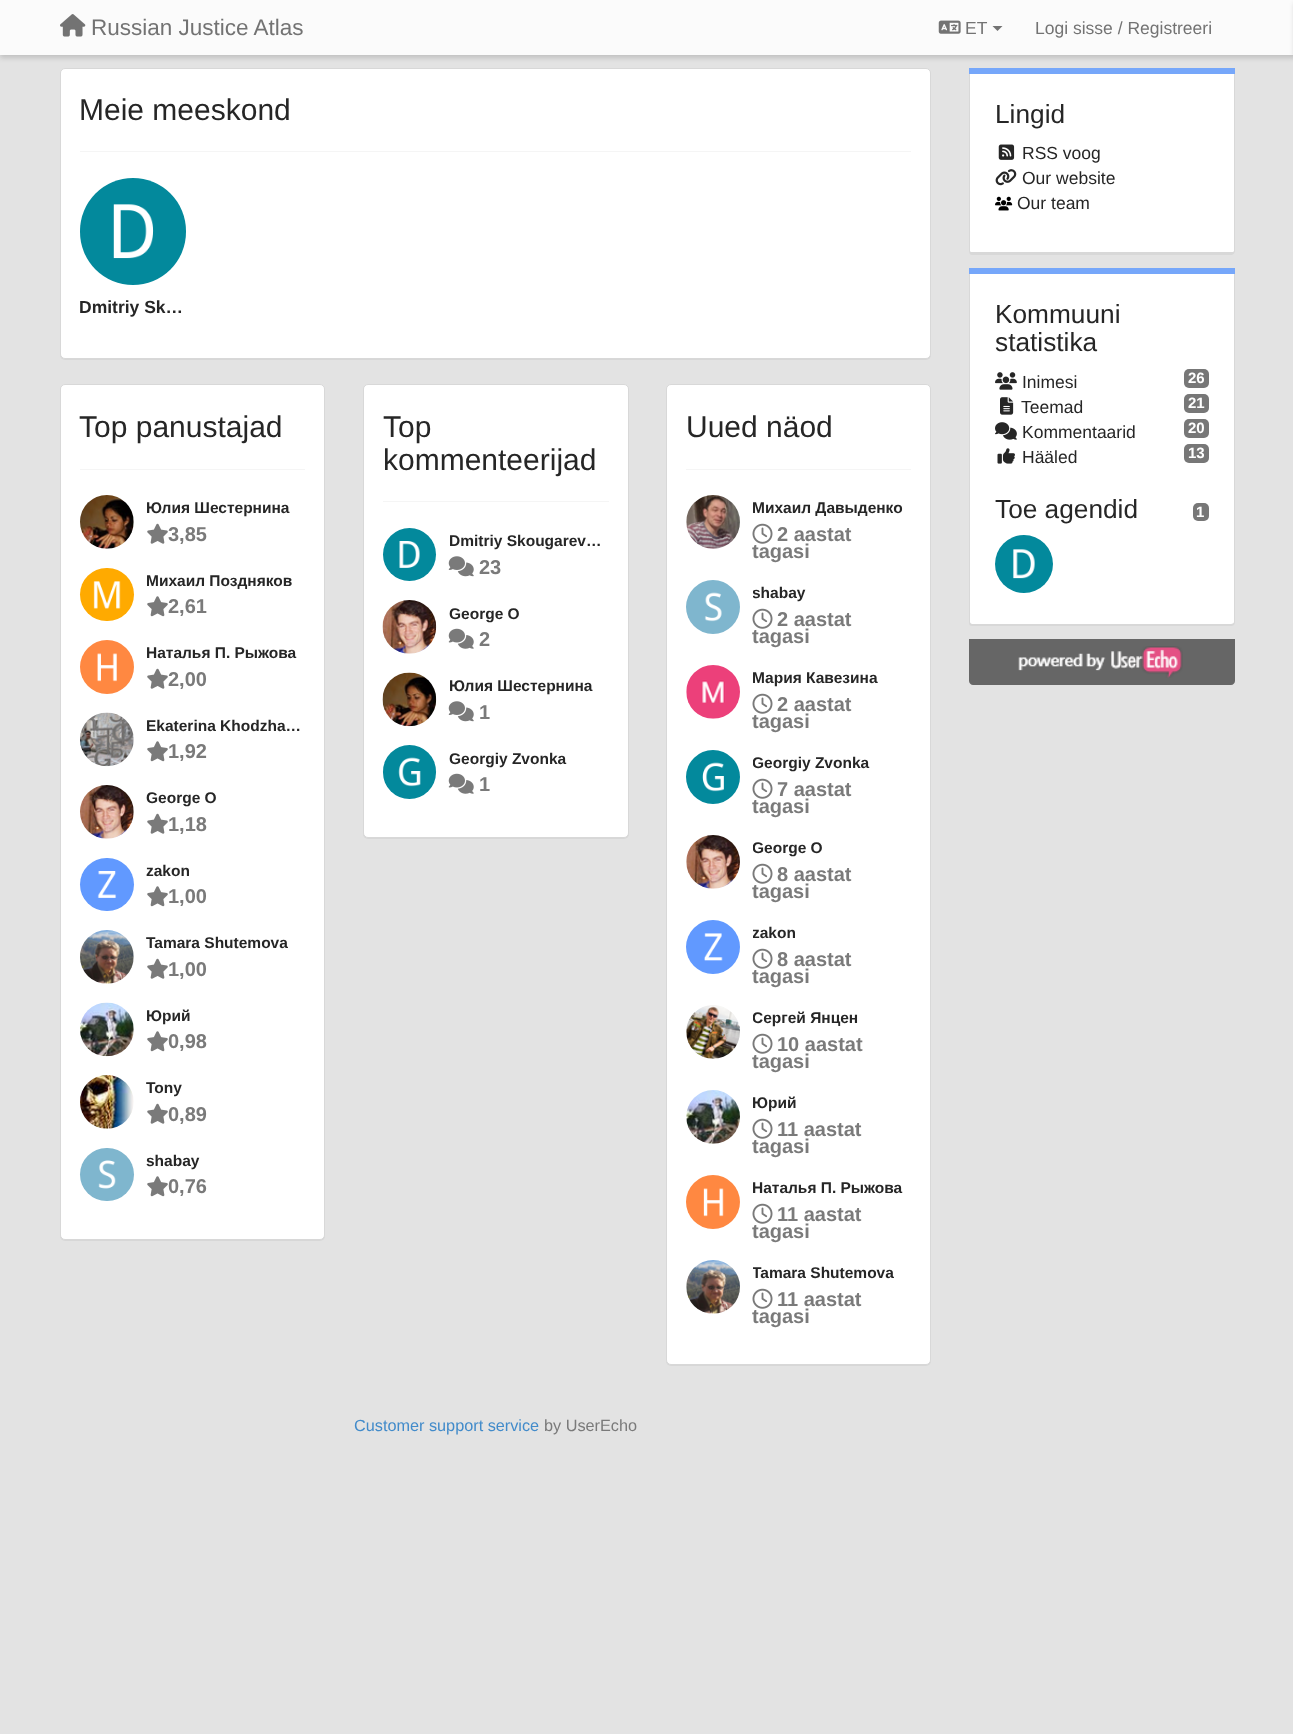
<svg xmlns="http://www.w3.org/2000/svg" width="1293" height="1734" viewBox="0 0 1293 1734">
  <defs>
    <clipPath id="clip1"><path d="M753 495h158v29H753z"/></clipPath>
    <clipPath id="clip2"><path d="M753 580h158v29H753z"/></clipPath>
    <clipPath id="clip3"><path d="M753 665h158v29H753z"/></clipPath>
    <clipPath id="clip4"><path d="M753 750h158v29H753z"/></clipPath>
    <clipPath id="clip5"><path d="M753 835h158v29H753z"/></clipPath>
    <clipPath id="clip6"><path d="M753 920h158v29H753z"/></clipPath>
    <clipPath id="clip7"><path d="M753 1005h158v29H753z"/></clipPath>
    <clipPath id="clip8"><path d="M753 1090h158v29H753z"/></clipPath>
    <clipPath id="clip9"><path d="M753 1175h158v29H753z"/></clipPath>
    <clipPath id="clip10"><path d="M753 1260h158v29H753z"/></clipPath>
  </defs>
  <rect width="100%" height="100%" fill="#e3e3e3"/>
  <path d="M0 3h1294v55H0z" fill="#00000026" filter="blur(2.5px)"/>
  <path d="M0 0h1293v55H0z" fill="#fbfbfb"/>
  <image x="60" y="14" width="26" height="23" href="img/1.png"/>
  <image x="938" y="20" width="23" height="14" href="img/2.png"/>
  <path d="M992.5 26H1002.5L997.5 31Z" fill="#737373"/>
  <path d="M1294 3h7v55H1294z" fill="#00000026" filter="blur(2.5px)"/>
  <rect x="60" y="69" width="871" height="291" rx="5" fill="#0000000d" filter="blur(0.5px)"/>
  <rect x="60.5" y="68.5" width="870" height="290" rx="4.5" fill="#fff" stroke="#d8d8d8"/>
  <path d="M80 151h831v1H80z" fill="#f5f5f5"/>
  <rect x="80" y="178" width="106" height="107" rx="53" fill="#03899c"/>
  <image x="113" y="204" width="41" height="55" href="img/3.png"/>
  <rect x="60" y="385" width="265" height="856" rx="5" fill="#0000000d" filter="blur(0.5px)"/>
  <rect x="60.5" y="384.5" width="264" height="855" rx="4.5" fill="#fff" stroke="#d8d8d8"/>
  <path d="M80 469h225v1H80z" fill="#f5f5f5"/>
  <image x="80" y="495" width="54" height="54" href="img/4.png"/>
  <image x="147" y="523" width="21" height="21" href="img/5.png"/>
  <rect x="80" y="568" width="54" height="53" rx="26.5" fill="#fa0"/>
  <image x="93" y="581" width="28" height="28" href="img/6.png"/>
  <image x="147" y="596" width="21" height="21" href="img/7.png"/>
  <circle cx="107" cy="667" r="27" fill="#ff8841"/>
  <image x="97" y="653" width="20" height="29" href="img/8.png"/>
  <image x="147" y="668" width="21" height="21" href="img/5.png"/>
  <image x="80" y="712" width="54" height="55" href="img/9.png"/>
  <image x="147" y="741" width="21" height="21" href="img/7.png"/>
  <image x="80" y="785" width="54" height="54" href="img/10.png"/>
  <image x="147" y="813" width="21" height="21" href="img/5.png"/>
  <rect x="80" y="858" width="54" height="53" rx="26.5" fill="#6199ff"/>
  <image x="97" y="871" width="20" height="27" href="img/11.png"/>
  <image x="147" y="886" width="21" height="21" href="img/7.png"/>
  <image x="80" y="930" width="54" height="54" href="img/12.png"/>
  <image x="147" y="958" width="21" height="21" href="img/5.png"/>
  <image x="80" y="1002" width="54" height="55" href="img/13.png"/>
  <image x="147" y="1031" width="21" height="21" href="img/7.png"/>
  <image x="80" y="1075" width="54" height="54" href="img/14.png"/>
  <image x="147" y="1103" width="21" height="21" href="img/5.png"/>
  <rect x="80" y="1148" width="54" height="53" rx="26.5" fill="#7fb6ce"/>
  <image x="98" y="1160" width="18" height="29" href="img/15.png"/>
  <image x="147" y="1176" width="21" height="21" href="img/7.png"/>
  <rect x="363" y="385" width="266" height="454" rx="5" fill="#0000000d" filter="blur(0.5px)"/>
  <rect x="363.5" y="384.5" width="265" height="453" rx="4.5" fill="#fff" stroke="#d8d8d8"/>
  <path d="M383 501h226v1H383z" fill="#f5f5f5"/>
  <circle cx="409.5" cy="554.5" r="26.5" fill="#03899c"/>
  <image x="399" y="541" width="21" height="27" href="img/16.png"/>
  <image x="448" y="556" width="26" height="21" href="img/17.png"/>
  <image x="382" y="600" width="55" height="54" href="img/18.png"/>
  <image x="448" y="628" width="26" height="21" href="img/19.png"/>
  <image x="382" y="672" width="55" height="55" href="img/20.png"/>
  <image x="448" y="701" width="26" height="21" href="img/17.png"/>
  <rect x="383" y="745" width="53" height="54" rx="26.5" fill="#03899c"/>
  <image x="398" y="757" width="23" height="30" href="img/21.png"/>
  <image x="448" y="773" width="26" height="21" href="img/19.png"/>
  <rect x="666" y="385" width="265" height="981" rx="5" fill="#0000000d" filter="blur(0.5px)"/>
  <rect x="666.5" y="384.5" width="264" height="980" rx="4.5" fill="#fff" stroke="#d8d8d8"/>
  <path d="M686 469h225v1H686z" fill="#f5f5f5"/>
  <image x="686" y="495" width="54" height="54" href="img/22.png"/>
  <image x="752" y="523" width="21" height="21" href="img/23.png"/>
  <circle cx="713" cy="607" r="27" fill="#7fb6ce"/>
  <image x="704" y="592" width="18" height="30" href="img/24.png"/>
  <image x="752" y="608" width="21" height="21" href="img/23.png"/>
  <image x="686" y="665" width="54" height="54" href="img/25.png"/>
  <image x="752" y="693" width="21" height="21" href="img/23.png"/>
  <circle cx="713" cy="777" r="27" fill="#03899c"/>
  <image x="702" y="762" width="22" height="30" href="img/26.png"/>
  <image x="752" y="778" width="21" height="21" href="img/23.png"/>
  <image x="686" y="835" width="54" height="54" href="img/27.png"/>
  <image x="752" y="863" width="21" height="21" href="img/23.png"/>
  <circle cx="713" cy="947" r="27" fill="#6199ff"/>
  <image x="704" y="933" width="19" height="28" href="img/28.png"/>
  <image x="752" y="948" width="21" height="21" href="img/23.png"/>
  <image x="686" y="1005" width="54" height="54" href="img/29.png"/>
  <image x="752" y="1033" width="21" height="21" href="img/23.png"/>
  <image x="686" y="1090" width="54" height="54" href="img/30.png"/>
  <image x="752" y="1118" width="21" height="21" href="img/23.png"/>
  <circle cx="713" cy="1202" r="27" fill="#ff8841"/>
  <image x="703" y="1188" width="21" height="29" href="img/31.png"/>
  <image x="752" y="1203" width="21" height="21" href="img/23.png"/>
  <image x="686" y="1260" width="54" height="54" href="img/32.png"/>
  <image x="752" y="1288" width="21" height="21" href="img/23.png"/>
  <path d="M969 68h266v6H969z" fill="#76a7fa"/>
  <path d="M970 74H1234V251C1234 252 1233 252 1231 252H972C971 252 970 252 970 251Z" fill="#fff"/>
  <path d="M969 74H1235V251C1235 253 1233 255 1231 255H972C970 255 969 253 969 251ZM970 74H1234V251C1234 252 1233 252 1231 252H972C971 252 970 252 970 251Z" fill="#d8d8d8" fill-rule="evenodd"/>
  <image x="998" y="144" width="17" height="16" href="img/33.png"/>
  <image x="995" y="169" width="22" height="17" href="img/34.png"/>
  <image x="995" y="196" width="18" height="15" href="img/35.png"/>
  <path d="M969 268h266v6H969z" fill="#76a7fa"/>
  <path d="M970 274H1234V622C1234 623 1233 624 1231 624H972C971 624 970 623 970 622Z" fill="#fff"/>
  <path d="M969 274H1235V622C1235 625 1233 626 1231 626H972C970 626 969 625 969 622ZM970 274H1234V622C1234 623 1233 624 1231 624H972C971 624 970 623 970 622Z" fill="#d8d8d8" fill-rule="evenodd"/>
  <image x="995" y="372" width="22" height="18" href="img/36.png"/>
  <rect x="1184" y="369" width="25" height="19" rx="5" fill="#777"/>
  <image x="1000" y="397" width="14" height="18" href="img/37.png"/>
  <rect x="1184" y="394" width="25" height="19" rx="5" fill="#777"/>
  <image x="995" y="422" width="22" height="18" href="img/38.png"/>
  <rect x="1184" y="419" width="25" height="19" rx="5" fill="#777"/>
  <image x="997" y="448" width="18" height="16" href="img/39.png"/>
  <rect x="1184" y="444" width="25" height="19" rx="5" fill="#777"/>
  <rect x="1193" y="503" width="16" height="18" rx="5" fill="#777"/>
  <circle cx="1024" cy="564" r="29" fill="#03899c"/>
  <image x="1013" y="549" width="22" height="30" href="img/40.png"/>
  <path d="M969 639H1235V681C1235 683 1233 685 1231 685H973C971 685 969 683 969 681Z" fill="#666"/>
  <image x="1018" y="646" width="165" height="32" href="img/41.png"/>
  <text x="91" y="35" font-family="Liberation Sans" font-size="22.5" fill="#737373">Russian Justice Atlas</text>
  <g font-family="Liberation Sans" font-size="17.5" fill="#737373">
    <text x="965" y="34">ET</text>
    <text x="1035" y="34">Logi sisse / Registreeri</text>
  </g>
  <text x="79" y="120" font-family="Liberation Sans" font-size="30" fill="#262626">Meie meeskond</text>
  <text x="79" y="313" font-family="Liberation Sans" font-size="17.5" font-weight="bold" fill="#262626">Dmitriy Sk…</text>
  <text x="79" y="437" font-family="Liberation Sans" font-size="30" fill="#262626">Top panustajad</text>
  <text x="146" y="513" font-family="Liberation Sans" font-size="15.5" font-weight="bold" fill="#262626">Юлия Шестернина</text>
  <text x="168" y="541" font-family="Liberation Sans" font-size="20" font-weight="bold" fill="#7a7a7a">3,85</text>
  <text x="146" y="586" font-family="Liberation Sans" font-size="15.5" font-weight="bold" fill="#262626">Михаил Поздняков</text>
  <text x="168" y="613" font-family="Liberation Sans" font-size="20" font-weight="bold" fill="#7a7a7a">2,61</text>
  <text x="146" y="658" font-family="Liberation Sans" font-size="15.5" font-weight="bold" fill="#262626">Наталья П. Рыжова</text>
  <text x="168" y="686" font-family="Liberation Sans" font-size="20" font-weight="bold" fill="#7a7a7a">2,00</text>
  <text x="146" y="731" font-family="Liberation Sans" font-size="15.5" font-weight="bold" fill="#262626">Ekaterina Khodzha…</text>
  <text x="168" y="758" font-family="Liberation Sans" font-size="20" font-weight="bold" fill="#7a7a7a">1,92</text>
  <text x="146" y="803" font-family="Liberation Sans" font-size="15.5" font-weight="bold" fill="#262626">George O</text>
  <text x="168" y="831" font-family="Liberation Sans" font-size="20" font-weight="bold" fill="#7a7a7a">1,18</text>
  <text x="146" y="876" font-family="Liberation Sans" font-size="15.5" font-weight="bold" fill="#262626">zakon</text>
  <text x="168" y="903" font-family="Liberation Sans" font-size="20" font-weight="bold" fill="#7a7a7a">1,00</text>
  <text x="146" y="948" font-family="Liberation Sans" font-size="15.5" font-weight="bold" fill="#262626">Tamara Shutemova</text>
  <text x="168" y="976" font-family="Liberation Sans" font-size="20" font-weight="bold" fill="#7a7a7a">1,00</text>
  <text x="146" y="1021" font-family="Liberation Sans" font-size="15.5" font-weight="bold" fill="#262626">Юрий</text>
  <text x="168" y="1048" font-family="Liberation Sans" font-size="20" font-weight="bold" fill="#7a7a7a">0,98</text>
  <text x="146" y="1093" font-family="Liberation Sans" font-size="15.5" font-weight="bold" fill="#262626">Tony</text>
  <text x="168" y="1121" font-family="Liberation Sans" font-size="20" font-weight="bold" fill="#7a7a7a">0,89</text>
  <text x="146" y="1166" font-family="Liberation Sans" font-size="15.5" font-weight="bold" fill="#262626">shabay</text>
  <text x="168" y="1193" font-family="Liberation Sans" font-size="20" font-weight="bold" fill="#7a7a7a">0,76</text>
  <g font-family="Liberation Sans" font-size="30" fill="#262626">
    <text x="383" y="437">Top</text>
    <text x="383" y="470">kommenteerijad</text>
  </g>
  <text x="449" y="546" font-family="Liberation Sans" font-size="15.5" font-weight="bold" fill="#262626">Dmitriy Skougarev…</text>
  <text x="479" y="574" font-family="Liberation Sans" font-size="20" font-weight="bold" fill="#7a7a7a">23</text>
  <text x="449" y="619" font-family="Liberation Sans" font-size="15.5" font-weight="bold" fill="#262626">George O</text>
  <text x="479" y="646" font-family="Liberation Sans" font-size="20" font-weight="bold" fill="#7a7a7a">2</text>
  <text x="449" y="691" font-family="Liberation Sans" font-size="15.5" font-weight="bold" fill="#262626">Юлия Шестернина</text>
  <text x="479" y="719" font-family="Liberation Sans" font-size="20" font-weight="bold" fill="#7a7a7a">1</text>
  <text x="449" y="764" font-family="Liberation Sans" font-size="15.5" font-weight="bold" fill="#262626">Georgiy Zvonka</text>
  <text x="479" y="791" font-family="Liberation Sans" font-size="20" font-weight="bold" fill="#7a7a7a">1</text>
  <text x="686" y="437" font-family="Liberation Sans" font-size="30" fill="#262626">Uued näod</text>
  <g clip-path="url(#clip1)">
    <text x="752" y="513" font-family="Liberation Sans" font-size="15.5" font-weight="bold" fill="#262626">Михаил Давыденко</text>
  </g>
  <g font-family="Liberation Sans" font-size="20" font-weight="bold" fill="#7a7a7a">
    <text x="777" y="541">2 aastat</text>
    <text x="752" y="558">tagasi</text>
  </g>
  <g clip-path="url(#clip2)">
    <text x="752" y="598" font-family="Liberation Sans" font-size="15.5" font-weight="bold" fill="#262626">shabay</text>
  </g>
  <g font-family="Liberation Sans" font-size="20" font-weight="bold" fill="#7a7a7a">
    <text x="777" y="626">2 aastat</text>
    <text x="752" y="643">tagasi</text>
  </g>
  <g clip-path="url(#clip3)">
    <text x="752" y="683" font-family="Liberation Sans" font-size="15.5" font-weight="bold" fill="#262626">Мария Кавезина</text>
  </g>
  <g font-family="Liberation Sans" font-size="20" font-weight="bold" fill="#7a7a7a">
    <text x="777" y="711">2 aastat</text>
    <text x="752" y="728">tagasi</text>
  </g>
  <g clip-path="url(#clip4)">
    <text x="752" y="768" font-family="Liberation Sans" font-size="15.5" font-weight="bold" fill="#262626">Georgiy Zvonka</text>
  </g>
  <g font-family="Liberation Sans" font-size="20" font-weight="bold" fill="#7a7a7a">
    <text x="777" y="796">7 aastat</text>
    <text x="752" y="813">tagasi</text>
  </g>
  <g clip-path="url(#clip5)">
    <text x="752" y="853" font-family="Liberation Sans" font-size="15.5" font-weight="bold" fill="#262626">George O</text>
  </g>
  <g font-family="Liberation Sans" font-size="20" font-weight="bold" fill="#7a7a7a">
    <text x="777" y="881">8 aastat</text>
    <text x="752" y="898">tagasi</text>
  </g>
  <g clip-path="url(#clip6)">
    <text x="752" y="938" font-family="Liberation Sans" font-size="15.5" font-weight="bold" fill="#262626">zakon</text>
  </g>
  <g font-family="Liberation Sans" font-size="20" font-weight="bold" fill="#7a7a7a">
    <text x="777" y="966">8 aastat</text>
    <text x="752" y="983">tagasi</text>
  </g>
  <g clip-path="url(#clip7)">
    <text x="752" y="1023" font-family="Liberation Sans" font-size="15.5" font-weight="bold" fill="#262626">Сергей Янцен</text>
  </g>
  <g font-family="Liberation Sans" font-size="20" font-weight="bold" fill="#7a7a7a">
    <text x="777" y="1051">10 aastat</text>
    <text x="752" y="1068">tagasi</text>
  </g>
  <g clip-path="url(#clip8)">
    <text x="752" y="1108" font-family="Liberation Sans" font-size="15.5" font-weight="bold" fill="#262626">Юрий</text>
  </g>
  <g font-family="Liberation Sans" font-size="20" font-weight="bold" fill="#7a7a7a">
    <text x="777" y="1136">11 aastat</text>
    <text x="752" y="1153">tagasi</text>
  </g>
  <g clip-path="url(#clip9)">
    <text x="752" y="1193" font-family="Liberation Sans" font-size="15.5" font-weight="bold" fill="#262626">Наталья П. Рыжова</text>
  </g>
  <g font-family="Liberation Sans" font-size="20" font-weight="bold" fill="#7a7a7a">
    <text x="777" y="1221">11 aastat</text>
    <text x="752" y="1238">tagasi</text>
  </g>
  <g clip-path="url(#clip10)">
    <text x="752" y="1278" font-family="Liberation Sans" font-size="15.5" font-weight="bold" fill="#262626">Tamara Shutemova</text>
  </g>
  <g font-family="Liberation Sans" font-size="20" font-weight="bold" fill="#7a7a7a">
    <text x="777" y="1306">11 aastat</text>
    <text x="752" y="1323">tagasi</text>
  </g>
  <text x="354" y="1431" font-family="Liberation Sans" font-size="16.25" fill="#428bca">Customer support service</text>
  <text x="544" y="1431" font-family="Liberation Sans" font-size="16.25" fill="#7a7a7a">by UserEcho</text>
  <text x="995" y="123" font-family="Liberation Sans" font-size="26.25" fill="#262626">Lingid</text>
  <g font-family="Liberation Sans" font-size="17.5" fill="#262626">
    <text x="1022" y="159">RSS voog</text>
    <text x="1022" y="184">Our website</text>
    <text x="1017" y="209">Our team</text>
  </g>
  <g font-family="Liberation Sans" font-size="26.25" fill="#262626">
    <text x="995" y="323">Kommuuni</text>
    <text x="995" y="351">statistika</text>
  </g>
  <text x="1022" y="388" font-family="Liberation Sans" font-size="17.5" fill="#262626">Inimesi</text>
  <text x="1188" y="383" font-family="Liberation Sans" font-size="15" font-weight="bold" fill="#fff">26</text>
  <text x="1021" y="413" font-family="Liberation Sans" font-size="17.5" fill="#262626">Teemad</text>
  <text x="1188" y="408" font-family="Liberation Sans" font-size="15" font-weight="bold" fill="#fff">21</text>
  <text x="1022" y="438" font-family="Liberation Sans" font-size="17.5" fill="#262626">Kommentaarid</text>
  <text x="1188" y="433" font-family="Liberation Sans" font-size="15" font-weight="bold" fill="#fff">20</text>
  <text x="1022" y="463" font-family="Liberation Sans" font-size="17.5" fill="#262626">Hääled</text>
  <text x="1188" y="458" font-family="Liberation Sans" font-size="15" font-weight="bold" fill="#fff">13</text>
  <text x="995" y="518" font-family="Liberation Sans" font-size="26.25" fill="#262626">Toe agendid</text>
  <text x="1196" y="517" font-family="Liberation Sans" font-size="15" font-weight="bold" fill="#fff">1</text>
</svg>
